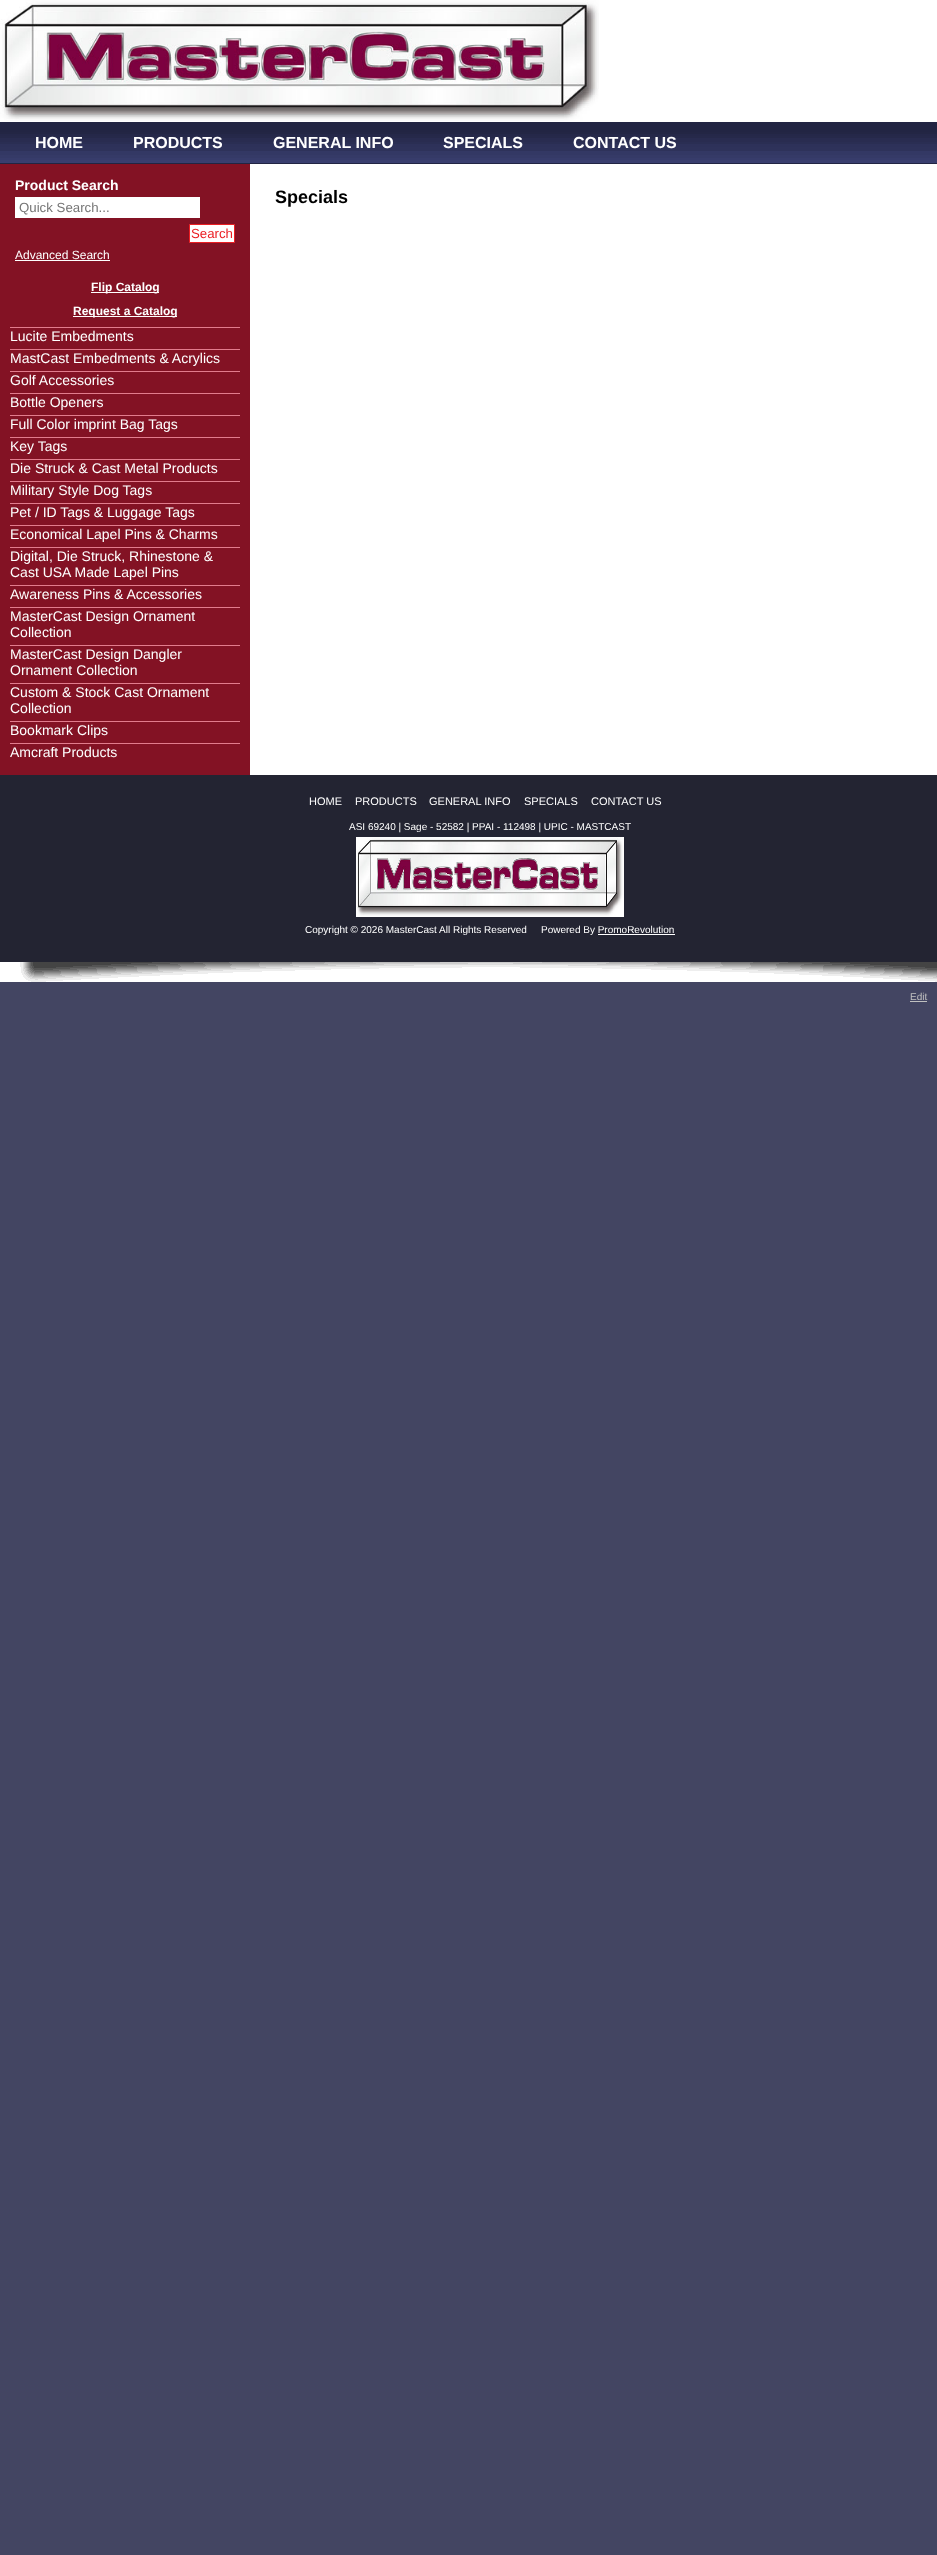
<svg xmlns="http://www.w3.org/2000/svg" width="937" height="2555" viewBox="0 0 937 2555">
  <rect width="100%" height="100%" fill="#434562"/>
  <path d="M0 0h937v982H0z" fill="#fff"/>
  <image x="0" y="0" width="599" height="121" href="img/1.png"/>
  <image x="0" y="122" width="937" height="42" href="img/2.png"/>
  <path d="M0 164h250v611H0z" fill="#831224"/>
  <path d="M15 197h185v21H15z" fill="#fff"/>
  <path d="M189.5 224.5h45v18H189.5z" fill="#fff" stroke="#eb1d22"/>
  <path d="M15 260h95v1H15z" fill="#fff"/>
  <path d="M91 292h68v1H91z" fill="#fff"/>
  <path d="M73 316h104v1H73z" fill="#fff"/>
  <path d="M10 327h230v1H10z" fill="#e27c8d"/>
  <path d="M10 349h230v1H10z" fill="#e27c8d"/>
  <path d="M10 371h230v1H10z" fill="#e27c8d"/>
  <path d="M10 393h230v1H10z" fill="#e27c8d"/>
  <path d="M10 415h230v1H10z" fill="#e27c8d"/>
  <path d="M10 437h230v1H10z" fill="#e27c8d"/>
  <path d="M10 459h230v1H10z" fill="#e27c8d"/>
  <path d="M10 481h230v1H10z" fill="#e27c8d"/>
  <path d="M10 503h230v1H10z" fill="#e27c8d"/>
  <path d="M10 525h230v1H10z" fill="#e27c8d"/>
  <path d="M10 547h230v1H10z" fill="#e27c8d"/>
  <path d="M10 585h230v1H10z" fill="#e27c8d"/>
  <path d="M10 607h230v1H10z" fill="#e27c8d"/>
  <path d="M10 645h230v1H10z" fill="#e27c8d"/>
  <path d="M10 683h230v1H10z" fill="#e27c8d"/>
  <path d="M10 721h230v1H10z" fill="#e27c8d"/>
  <path d="M10 743h230v1H10z" fill="#e27c8d"/>
  <image x="20" y="962" width="917" height="20" href="img/3.png"/>
  <path d="M0 775h937v187H0z" fill="#232432"/>
  <image x="356" y="837" width="268" height="80" href="img/4.png"/>
  <path d="M598 934h77v1H598z" fill="#fff"/>
  <path d="M910 1001h17v1H910z" fill="#c0c0c0"/>
  <g font-family="Liberation Sans" font-size="16" font-weight="bold" fill="#fff">
    <text x="35" y="148">HOME</text>
    <text x="133" y="148">PRODUCTS</text>
    <text x="273" y="148">GENERAL INFO</text>
    <text x="443" y="148">SPECIALS</text>
    <text x="573" y="148">CONTACT US</text>
  </g>
  <text x="15" y="190" font-family="Liberation Sans" font-size="14" font-weight="bold" fill="#fff">Product Search</text>
  <text x="19" y="212" font-family="Liberation Sans" font-size="13.25" fill="#757575">Quick Search...</text>
  <text x="191" y="238" font-family="Liberation Sans" font-size="13.25" fill="#eb1d22">Search</text>
  <text x="15" y="259" font-family="Liberation Sans" font-size="12" fill="#fff">Advanced Search</text>
  <g font-family="Liberation Sans" font-size="12" font-weight="bold" fill="#fff">
    <text x="91" y="291">Flip Catalog</text>
    <text x="73" y="315">Request a Catalog</text>
  </g>
  <g font-family="Liberation Sans" font-size="14" fill="#fff">
    <text x="10" y="341">Lucite Embedments</text>
    <text x="10" y="363">MastCast Embedments &amp; Acrylics</text>
    <text x="10" y="385">Golf Accessories</text>
    <text x="10" y="407">Bottle Openers</text>
    <text x="10" y="429">Full Color imprint Bag Tags</text>
    <text x="10" y="451">Key Tags</text>
    <text x="10" y="473">Die Struck &amp; Cast Metal Products</text>
    <text x="10" y="495">Military Style Dog Tags</text>
    <text x="10" y="517">Pet / ID Tags &amp; Luggage Tags</text>
    <text x="10" y="539">Economical Lapel Pins &amp; Charms</text>
    <text x="10" y="561">Digital, Die Struck, Rhinestone &amp;</text>
    <text x="10" y="577">Cast USA Made Lapel Pins</text>
    <text x="10" y="599">Awareness Pins &amp; Accessories</text>
    <text x="10" y="621">MasterCast Design Ornament</text>
    <text x="10" y="637">Collection</text>
    <text x="10" y="659">MasterCast Design Dangler</text>
    <text x="10" y="675">Ornament Collection</text>
    <text x="10" y="697">Custom &amp; Stock Cast Ornament</text>
    <text x="10" y="713">Collection</text>
    <text x="10" y="735">Bookmark Clips</text>
    <text x="10" y="757">Amcraft Products</text>
  </g>
  <text x="275" y="203" font-family="Liberation Sans" font-size="18" font-weight="bold" fill="#000">Specials</text>
  <g font-family="Liberation Sans" font-size="11" fill="#fff">
    <text x="309" y="805">HOME</text>
    <text x="355" y="805">PRODUCTS</text>
    <text x="429" y="805">GENERAL INFO</text>
    <text x="524" y="805">SPECIALS</text>
    <text x="591" y="805">CONTACT US</text>
  </g>
  <g font-family="Liberation Sans" font-size="10" fill="#fff">
    <text x="349" y="830">ASI 69240 | Sage - 52582 | PPAI - 112498 | UPIC - MASTCAST</text>
    <text x="305" y="933">Copyright © 2026 MasterCast All Rights Reserved</text>
    <text x="541" y="933">Powered By PromoRevolution</text>
  </g>
  <text x="910" y="1000" font-family="Liberation Sans" font-size="10" fill="#c0c0c0">Edit</text>
</svg>
